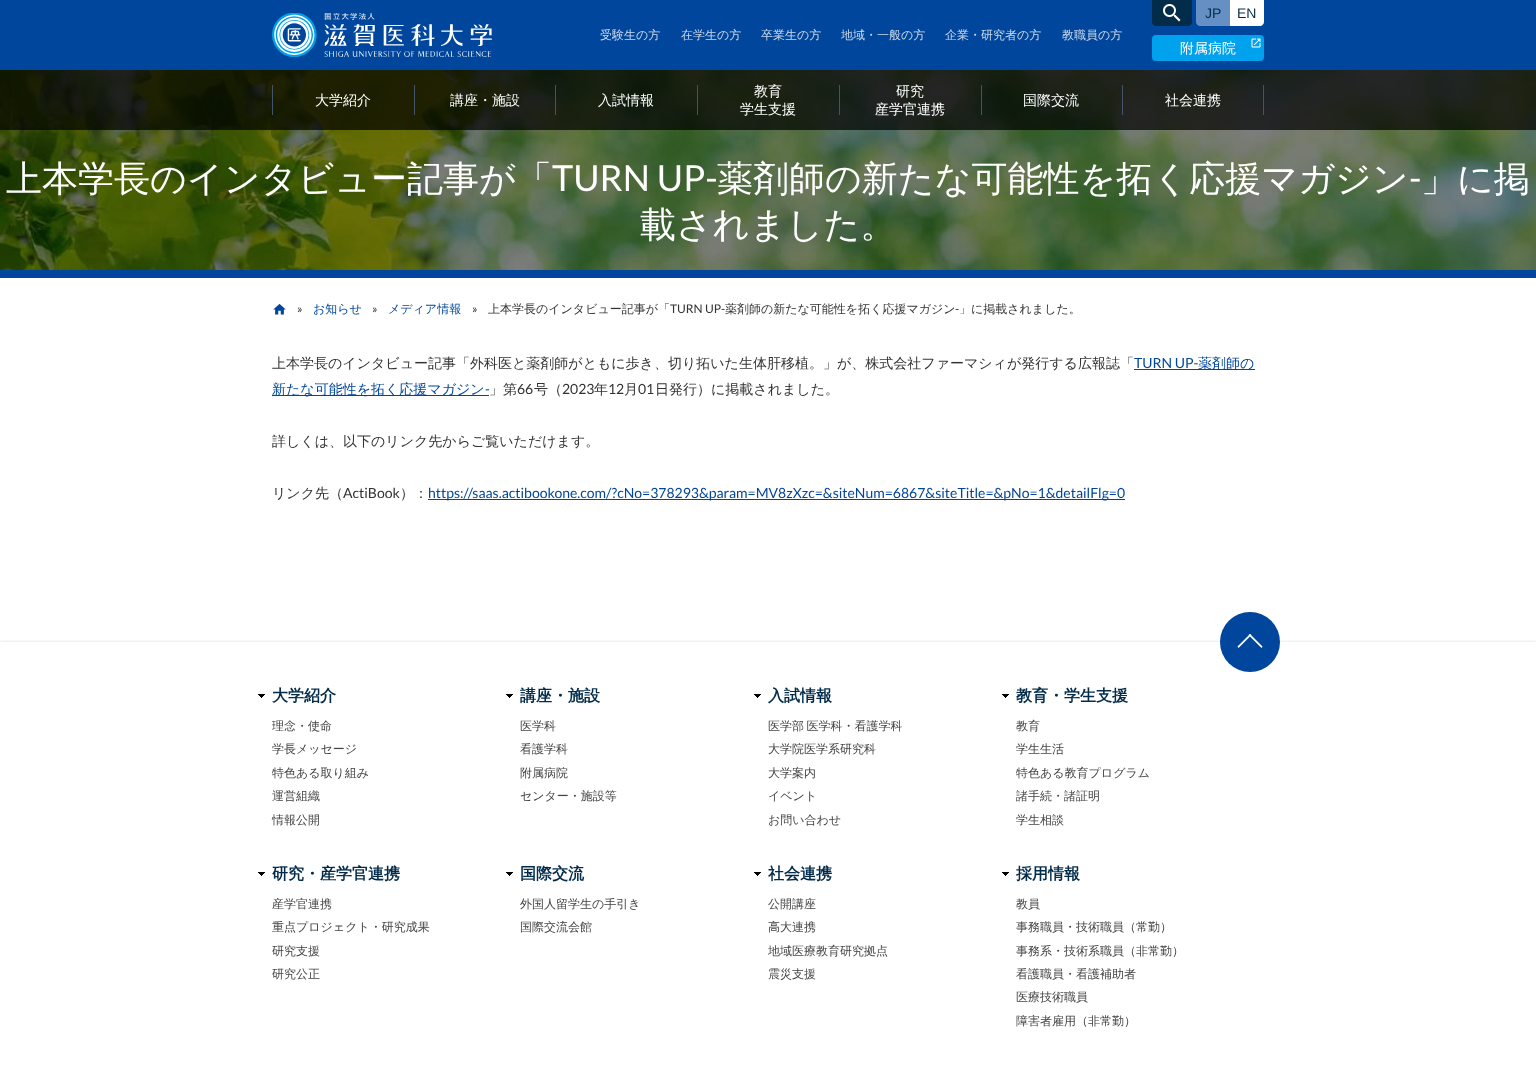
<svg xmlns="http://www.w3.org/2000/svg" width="1536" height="1084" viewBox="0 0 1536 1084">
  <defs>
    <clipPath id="clip1"><path d="M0 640h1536v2H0z"/></clipPath>
  </defs>
  <rect width="100%" height="100%" fill="#fff"/>
  <path d="M0 0h1536v70H0z" fill="#00469c"/>
  <path d="M1152 0H1192V22C1192 24 1190 26 1188 26H1156C1154 26 1152 24 1152 22Z" fill="#032c4b"/>
  <image x="1163" y="4" width="18" height="18" href="img/1.png"/>
  <path d="M1196 0H1230V26H1200C1198 26 1196 24 1196 22Z" fill="#6690c4"/>
  <path d="M1230 0H1264V22C1264 24 1262 26 1260 26H1230Z" fill="#fff"/>
  <image x="0" y="70" width="1536" height="200" href="img/4.png"/>
  <path d="M0 70h1536v60H0z" fill="#000000b3"/>
  <path d="M272 85h1v30H272z" fill="#435469"/>
  <path d="M414 85h1v30H414z" fill="#435469"/>
  <path d="M555 85h1v30H555z" fill="#435469"/>
  <path d="M697 85h1v30H697z" fill="#435469"/>
  <path d="M839 85h1v30H839z" fill="#435469"/>
  <path d="M981 85h1v30H981z" fill="#435469"/>
  <path d="M1122 85h1v30H1122z" fill="#435469"/>
  <path d="M1263 85h1v30H1263z" fill="#435469"/>
  <image x="272" y="13" width="220" height="44" href="img/2.png"/>
  <rect x="1152" y="35" width="112" height="26" rx="4" fill="#00a1ed"/>
  <image x="1251" y="38" width="10" height="10" href="img/3.png"/>
  <path d="M0 270h1536v8H0z" fill="#00469c"/>
  <image x="273" y="304" width="13" height="11" href="img/5.png"/>
  <path d="M1134 369h121v1H1134z" fill="#00469c"/>
  <path d="M272 395h217v1H272z" fill="#00469c"/>
  <path d="M428 499h697v1H428z" fill="#00469c"/>
  <g clip-path="url(#clip1)">
    <path d="M0 642h1536v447H0z" fill="#00000026" filter="blur(1.5px)"/>
  </g>
  <circle cx="1250" cy="642" r="30" fill="#00469c"/>
  <path d="M1237.5 646.5L1250 634L1251.5 635L1238.5 648Z" fill="#fff"/>
  <path d="M1248.5 635L1250 634L1262.5 646.5L1261.5 648Z" fill="#fff"/>
  <image x="258" y="694" width="7" height="4" href="img/6.png"/>
  <image x="506" y="694" width="7" height="4" href="img/6.png"/>
  <image x="754" y="694" width="7" height="4" href="img/6.png"/>
  <image x="1002" y="694" width="7" height="4" href="img/6.png"/>
  <image x="258" y="872" width="7" height="4" href="img/6.png"/>
  <image x="506" y="872" width="7" height="4" href="img/6.png"/>
  <image x="754" y="872" width="7" height="4" href="img/6.png"/>
  <image x="1002" y="872" width="7" height="4" href="img/6.png"/>
  <g font-family="Liberation Sans" font-size="14" fill="#032c4b">
    <text x="1205" y="18">JP</text>
    <text x="1237" y="18">EN</text>
  </g>
  <g font-family="WenQuanYi Zen Hei" font-size="12" font-weight="500" fill="#ccdaeb">
    <text x="600" y="39">受験生の方</text>
    <text x="681" y="39">在学生の方</text>
    <text x="761" y="39">卒業生の方</text>
    <text x="841" y="39">地域・一般の方</text>
    <text x="945" y="39">企業・研究者の方</text>
    <text x="1062" y="39">教職員の方</text>
  </g>
  <g font-family="WenQuanYi Zen Hei" font-size="14" font-weight="500" fill="#fff">
    <text x="315" y="105">大学紹介</text>
    <text x="450" y="105">講座・施設</text>
    <text x="598" y="105">入試情報</text>
    <text x="754" y="96">教育</text>
    <text x="740" y="114">学生支援</text>
    <text x="896" y="96">研究</text>
    <text x="875" y="114">産学官連携</text>
    <text x="1023" y="105">国際交流</text>
    <text x="1165" y="105">社会連携</text>
    <text x="1180" y="53">附属病院</text>
  </g>
  <text x="6" y="191" font-family="WenQuanYi Zen Hei" font-size="36" font-weight="500" fill="#fff">上本学長のインタビュー記事が「</text>
  <text x="552" y="191" font-family="Lato" font-size="36" fill="#fff">TURN UP-</text>
  <text x="717" y="191" font-family="WenQuanYi Zen Hei" font-size="36" font-weight="500" fill="#fff">薬剤師の新たな可能性を拓く応援マガジン</text>
  <text x="1409" y="191" font-family="Lato" font-size="36" fill="#fff">-</text>
  <g font-family="WenQuanYi Zen Hei" font-size="36" font-weight="500" fill="#fff">
    <text x="1421" y="191">」に掲</text>
    <text x="640" y="237">載されました。</text>
  </g>
  <text x="297" y="313" font-family="Lato" font-size="12" fill="#333">»</text>
  <text x="313" y="313" font-family="WenQuanYi Zen Hei" font-size="12" font-weight="500" fill="#00469c">お知らせ</text>
  <text x="372" y="313" font-family="Lato" font-size="12" fill="#333">»</text>
  <text x="388" y="313" font-family="WenQuanYi Zen Hei" font-size="12" font-weight="500" fill="#00469c">メディア情報</text>
  <text x="472" y="313" font-family="Lato" font-size="12" fill="#333">»</text>
  <text x="488" y="313" font-family="WenQuanYi Zen Hei" font-size="12" font-weight="500" fill="#333">上本学長のインタビュー記事が「</text>
  <text x="670" y="313" font-family="Lato" font-size="12" fill="#333">TURN UP-</text>
  <text x="725" y="313" font-family="WenQuanYi Zen Hei" font-size="12" font-weight="500" fill="#333">薬剤師の新たな可能性を拓く応援マガジン</text>
  <text x="955" y="313" font-family="Lato" font-size="12" fill="#333">-</text>
  <text x="959" y="313" font-family="WenQuanYi Zen Hei" font-size="12" font-weight="500" fill="#333">」に掲載されました。</text>
  <text x="272" y="368" font-family="WenQuanYi Zen Hei" font-size="14" font-weight="500" fill="#333">上本学長のインタビュー記事「外科医と薬剤師がともに歩き、切り拓いた生体肝移植。」が、株式会社ファーマシィが発行する広報誌「</text>
  <text x="1134" y="368" font-family="Lato" font-size="14" fill="#00469c">TURN UP-</text>
  <g font-family="WenQuanYi Zen Hei" font-size="14" font-weight="500" fill="#00469c">
    <text x="1198" y="368">薬剤師の</text>
    <text x="272" y="394">新たな可能性を拓く応援マガジン</text>
  </g>
  <text x="485" y="394" font-family="Lato" font-size="14" fill="#00469c">-</text>
  <text x="489" y="394" font-family="WenQuanYi Zen Hei" font-size="14" font-weight="500" fill="#333">」第</text>
  <text x="517" y="394" font-family="Lato" font-size="14" fill="#333">66</text>
  <text x="534" y="394" font-family="WenQuanYi Zen Hei" font-size="14" font-weight="500" fill="#333">号（</text>
  <text x="562" y="394" font-family="Lato" font-size="14" fill="#333">2023</text>
  <text x="594" y="394" font-family="WenQuanYi Zen Hei" font-size="14" font-weight="500" fill="#333">年</text>
  <text x="608" y="394" font-family="Lato" font-size="14" fill="#333">12</text>
  <text x="624" y="394" font-family="WenQuanYi Zen Hei" font-size="14" font-weight="500" fill="#333">月</text>
  <text x="638" y="394" font-family="Lato" font-size="14" fill="#333">01</text>
  <g font-family="WenQuanYi Zen Hei" font-size="14" font-weight="500" fill="#333">
    <text x="655" y="394">日発行）に掲載されました。</text>
    <text x="272" y="446">詳しくは、以下のリンク先からご覧いただけます。</text>
    <text x="272" y="498">リンク先（</text>
  </g>
  <text x="343" y="498" font-family="Lato" font-size="14" fill="#333">ActiBook</text>
  <text x="400" y="498" font-family="WenQuanYi Zen Hei" font-size="14" font-weight="500" fill="#333">）：</text>
  <text x="428" y="498" font-family="Lato" font-size="14" fill="#00469c">https://saas.actibookone.com/?cNo=378293&amp;param=MV8zXzc=&amp;siteNum=6867&amp;siteTitle=&amp;pNo=1&amp;detailFlg=0</text>
  <text x="272" y="701" font-family="WenQuanYi Zen Hei" font-size="16" font-weight="bold" fill="#032c4b">大学紹介</text>
  <g font-family="WenQuanYi Zen Hei" font-size="12" font-weight="500" fill="#444">
    <text x="272" y="730">理念・使命</text>
    <text x="272" y="753">学長メッセージ</text>
    <text x="272" y="777">特色ある取り組み</text>
    <text x="272" y="800">運営組織</text>
    <text x="272" y="824">情報公開</text>
  </g>
  <text x="520" y="701" font-family="WenQuanYi Zen Hei" font-size="16" font-weight="bold" fill="#032c4b">講座・施設</text>
  <g font-family="WenQuanYi Zen Hei" font-size="12" font-weight="500" fill="#444">
    <text x="520" y="730">医学科</text>
    <text x="520" y="753">看護学科</text>
    <text x="520" y="777">附属病院</text>
    <text x="520" y="800">センター・施設等</text>
  </g>
  <text x="768" y="701" font-family="WenQuanYi Zen Hei" font-size="16" font-weight="bold" fill="#032c4b">入試情報</text>
  <g font-family="WenQuanYi Zen Hei" font-size="12" font-weight="500" fill="#444">
    <text x="768" y="730" word-spacing="-1">医学部 医学科・看護学科</text>
    <text x="768" y="753">大学院医学系研究科</text>
    <text x="768" y="777">大学案内</text>
    <text x="768" y="800">イベント</text>
    <text x="768" y="824">お問い合わせ</text>
  </g>
  <text x="1016" y="701" font-family="WenQuanYi Zen Hei" font-size="16" font-weight="bold" fill="#032c4b">教育・学生支援</text>
  <g font-family="WenQuanYi Zen Hei" font-size="12" font-weight="500" fill="#444">
    <text x="1016" y="730">教育</text>
    <text x="1016" y="753">学生生活</text>
    <text x="1016" y="777">特色ある教育プログラム</text>
    <text x="1016" y="800">諸手続・諸証明</text>
    <text x="1016" y="824">学生相談</text>
  </g>
  <text x="272" y="879" font-family="WenQuanYi Zen Hei" font-size="16" font-weight="bold" fill="#032c4b">研究・産学官連携</text>
  <g font-family="WenQuanYi Zen Hei" font-size="12" font-weight="500" fill="#444">
    <text x="272" y="908">産学官連携</text>
    <text x="272" y="931">重点プロジェクト・研究成果</text>
    <text x="272" y="955">研究支援</text>
    <text x="272" y="978">研究公正</text>
  </g>
  <text x="520" y="879" font-family="WenQuanYi Zen Hei" font-size="16" font-weight="bold" fill="#032c4b">国際交流</text>
  <g font-family="WenQuanYi Zen Hei" font-size="12" font-weight="500" fill="#444">
    <text x="520" y="908">外国人留学生の手引き</text>
    <text x="520" y="931">国際交流会館</text>
  </g>
  <text x="768" y="879" font-family="WenQuanYi Zen Hei" font-size="16" font-weight="bold" fill="#032c4b">社会連携</text>
  <g font-family="WenQuanYi Zen Hei" font-size="12" font-weight="500" fill="#444">
    <text x="768" y="908">公開講座</text>
    <text x="768" y="931">高大連携</text>
    <text x="768" y="955">地域医療教育研究拠点</text>
    <text x="768" y="978">震災支援</text>
  </g>
  <text x="1016" y="879" font-family="WenQuanYi Zen Hei" font-size="16" font-weight="bold" fill="#032c4b">採用情報</text>
  <g font-family="WenQuanYi Zen Hei" font-size="12" font-weight="500" fill="#444">
    <text x="1016" y="908">教員</text>
    <text x="1016" y="931">事務職員・技術職員（常勤）</text>
    <text x="1016" y="955">事務系・技術系職員（非常勤）</text>
    <text x="1016" y="978">看護職員・看護補助者</text>
    <text x="1016" y="1001">医療技術職員</text>
    <text x="1016" y="1025">障害者雇用（非常勤）</text>
  </g>
</svg>
